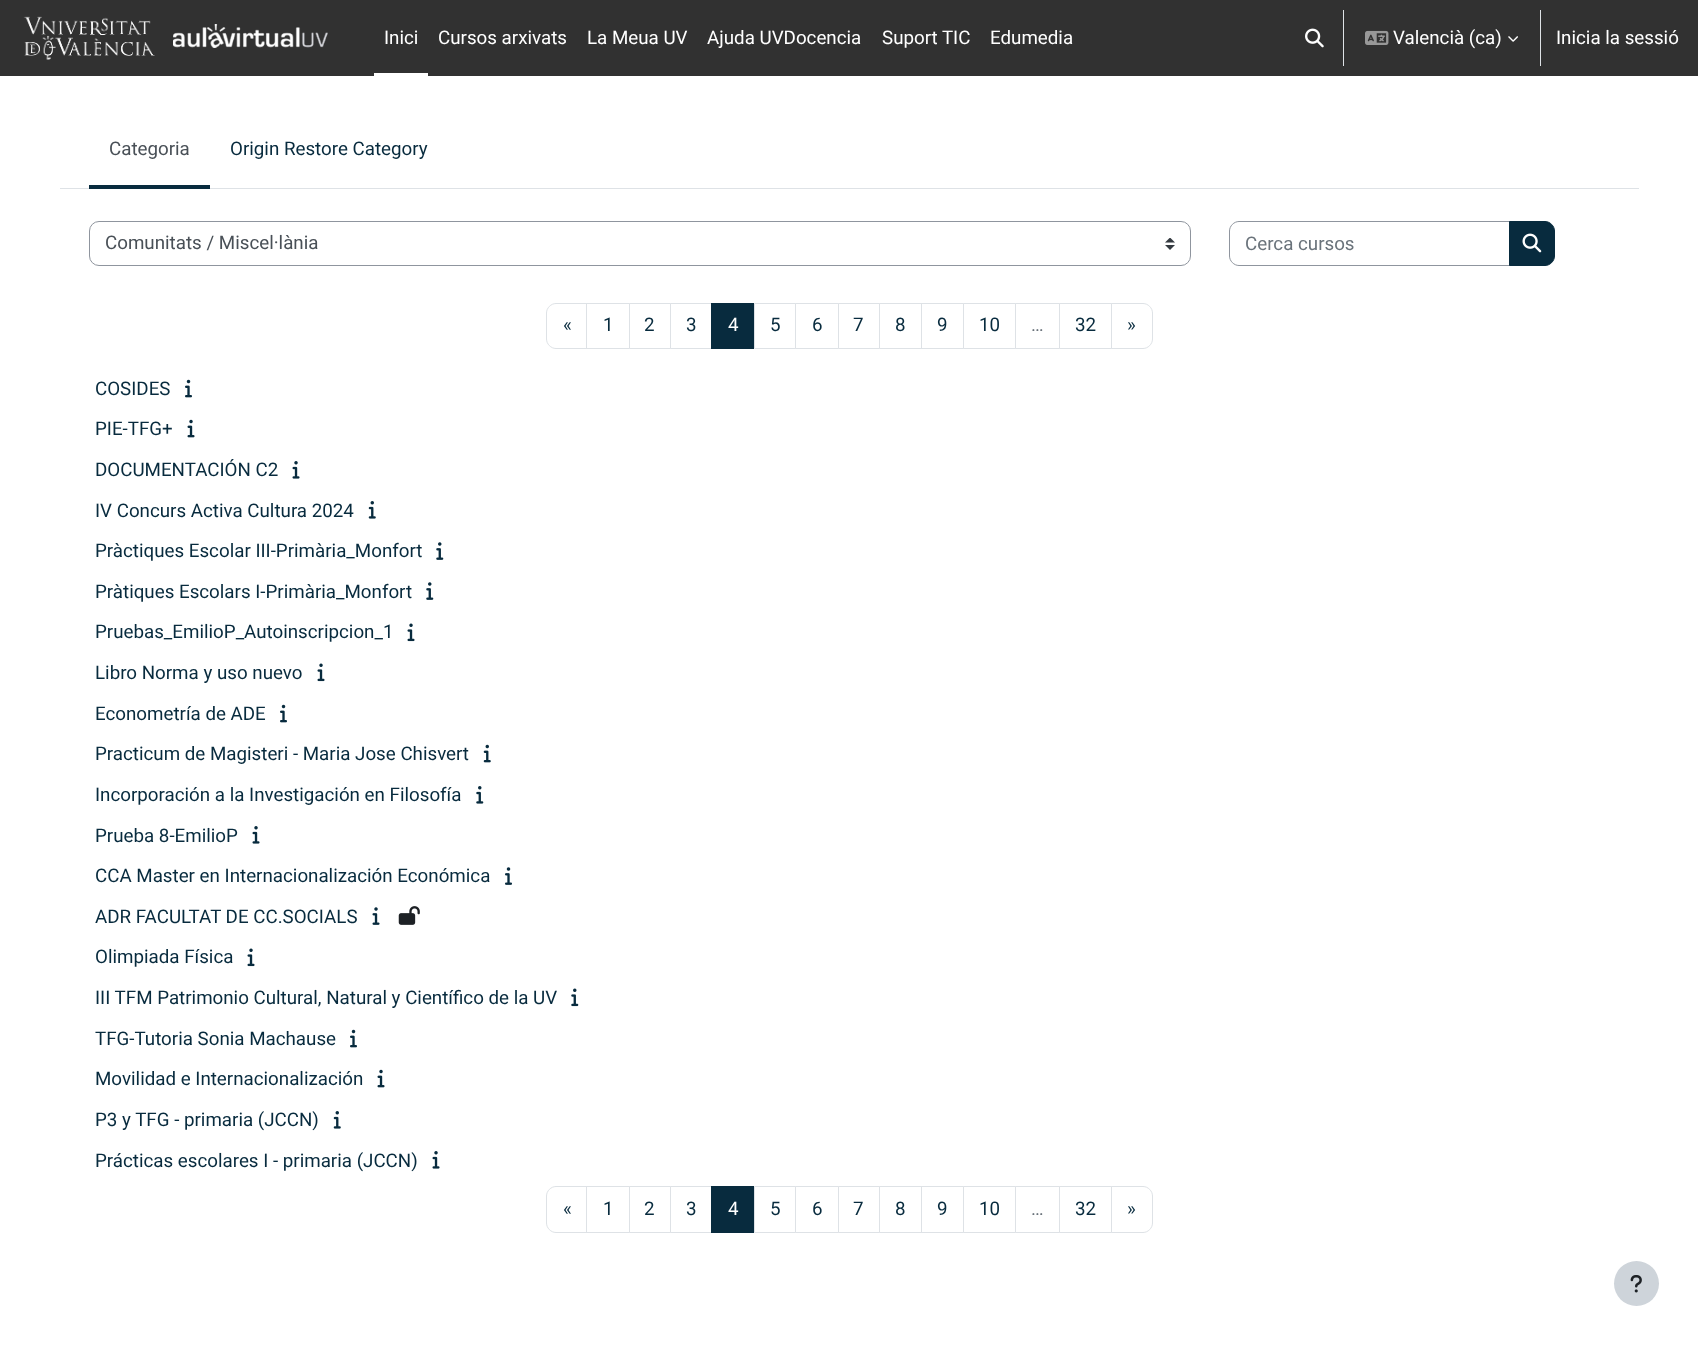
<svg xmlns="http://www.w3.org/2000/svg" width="1698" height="1346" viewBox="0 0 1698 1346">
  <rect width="100%" height="100%" fill="#fff"/>
  <path d="M0 0h1698v76H0z" fill="#313131"/>
  <image x="23" y="16" width="132" height="44" href="img/1.png"/>
  <image x="173" y="24" width="155" height="24" href="img/2.png"/>
  <path d="M374 73h54v3H374z" fill="#fff"/>
  <image x="1305" y="28" width="19" height="20" href="img/3.png"/>
  <path d="M1343 10h1v56H1343z" fill="#dee2e6"/>
  <image x="1365" y="30" width="24" height="15" href="img/4.png"/>
  <image x="1508" y="36" width="10" height="6" href="img/5.png"/>
  <path d="M1540 10h1v56H1540z" fill="#dee2e6"/>
  <path d="M60 188h1579v1H60z" fill="#dee2e6"/>
  <path d="M89 185h121v4H89z" fill="#082b3e"/>
  <image x="1165" y="238" width="10" height="12" href="img/6.png"/>
  <rect x="89.5" y="221.5" width="1101" height="44" rx="9.5" fill="none" stroke="#8f959e"/>
  <path d="M1239 221.5H1509.5V265.5H1239C1234 265.5 1229.5 261 1229.5 256V231C1229.5 226 1234 221.5 1239 221.5Z" fill="none" stroke="#8f959e"/>
  <path d="M1509.5 221.5H1545C1550 221.5 1554.5 226 1554.5 231V256C1554.5 261 1550 265.5 1545 265.5H1509.5Z" fill="#082b3e" stroke="#082b3e"/>
  <image x="1522" y="233" width="20" height="20" href="img/7.png"/>
  <path d="M556 303.5H587.5V348.5H556C551 348.5 546.5 344 546.5 339V313C546.5 308 551 303.5 556 303.5Z" fill="none" stroke="#dee2e6"/>
  <path d="M587 304h1v44H587z" fill="#fff"/>
  <path d="M586.5 303.5h43v45H586.5z" fill="none" stroke="#dee2e6"/>
  <path d="M629.5 303.5h41v45H629.5z" fill="none" stroke="#dee2e6"/>
  <path d="M670.5 303.5h42v45H670.5z" fill="none" stroke="#dee2e6"/>
  <path d="M711 303h43v46H711z" fill="#082b3e"/>
  <path d="M754.5 303.5h41v45H754.5z" fill="none" stroke="#dee2e6"/>
  <path d="M795.5 303.5h43v45H795.5z" fill="none" stroke="#dee2e6"/>
  <path d="M838.5 303.5h41v45H838.5z" fill="none" stroke="#dee2e6"/>
  <path d="M879.5 303.5h43v45H879.5z" fill="none" stroke="#dee2e6"/>
  <path d="M922 304h1v44H922z" fill="#fff"/>
  <path d="M921.5 303.5h42v45H921.5z" fill="none" stroke="#dee2e6"/>
  <path d="M963.5 303.5h52v45H963.5z" fill="none" stroke="#dee2e6"/>
  <path d="M1015.5 303.5h44v45H1015.5z" fill="none" stroke="#dee2e6"/>
  <path d="M1059.5 303.5h53v45H1059.5z" fill="none" stroke="#dee2e6"/>
  <path d="M1111.5 303.5H1143C1148 303.5 1152.5 308 1152.5 313V339C1152.5 344 1148 348.5 1143 348.5H1111.5Z" fill="#fff" stroke="#dee2e6"/>
  <image x="185" y="379" width="7" height="19" href="img/8.png"/>
  <image x="187" y="419" width="8" height="19" href="img/9.png"/>
  <image x="292" y="461" width="8" height="18" href="img/10.png"/>
  <image x="368" y="501" width="8" height="18" href="img/11.png"/>
  <image x="436" y="542" width="8" height="18" href="img/12.png"/>
  <image x="426" y="582" width="8" height="18" href="img/12.png"/>
  <image x="407" y="623" width="8" height="19" href="img/13.png"/>
  <image x="317" y="663" width="8" height="19" href="img/13.png"/>
  <image x="280" y="704" width="7" height="19" href="img/8.png"/>
  <image x="483" y="744" width="8" height="19" href="img/14.png"/>
  <image x="476" y="786" width="8" height="18" href="img/15.png"/>
  <image x="252" y="826" width="8" height="18" href="img/10.png"/>
  <image x="505" y="867" width="7" height="18" href="img/16.png"/>
  <image x="372" y="907" width="8" height="18" href="img/17.png"/>
  <image x="398" y="906" width="22" height="19" href="img/18.png"/>
  <image x="247" y="948" width="8" height="19" href="img/13.png"/>
  <image x="571" y="988" width="8" height="19" href="img/19.png"/>
  <image x="350" y="1029" width="7" height="19" href="img/8.png"/>
  <image x="377" y="1069" width="8" height="19" href="img/9.png"/>
  <image x="333" y="1111" width="8" height="18" href="img/11.png"/>
  <image x="432" y="1151" width="8" height="18" href="img/10.png"/>
  <path d="M556 1186.5H587.5V1232.5H556C551 1232.5 546.5 1228 546.5 1223V1196C546.5 1191 551 1186.5 556 1186.5Z" fill="none" stroke="#dee2e6"/>
  <path d="M587 1187h1v45H587z" fill="#fff"/>
  <path d="M586.5 1186.5h43v46H586.5z" fill="none" stroke="#dee2e6"/>
  <path d="M629.5 1186.5h41v46H629.5z" fill="none" stroke="#dee2e6"/>
  <path d="M670.5 1186.5h42v46H670.5z" fill="none" stroke="#dee2e6"/>
  <path d="M711 1186h43v47H711z" fill="#082b3e"/>
  <path d="M754.5 1186.5h41v46H754.5z" fill="none" stroke="#dee2e6"/>
  <path d="M795.5 1186.5h43v46H795.5z" fill="none" stroke="#dee2e6"/>
  <path d="M838.5 1186.5h41v46H838.5z" fill="none" stroke="#dee2e6"/>
  <path d="M879.5 1186.5h43v46H879.5z" fill="none" stroke="#dee2e6"/>
  <path d="M922 1187h1v45H922z" fill="#fff"/>
  <path d="M921.5 1186.5h42v46H921.5z" fill="none" stroke="#dee2e6"/>
  <path d="M963.5 1186.5h52v46H963.5z" fill="none" stroke="#dee2e6"/>
  <path d="M1015.5 1186.5h44v46H1015.5z" fill="none" stroke="#dee2e6"/>
  <path d="M1059.5 1186.5h53v46H1059.5z" fill="none" stroke="#dee2e6"/>
  <path d="M1111.5 1186.5H1143C1148 1186.5 1152.5 1191 1152.5 1196V1223C1152.5 1228 1148 1232.5 1143 1232.5H1111.5Z" fill="#fff" stroke="#dee2e6"/>
  <circle cx="1636.5" cy="1283.5" r="22.5" fill="#ced4da"/>
  <image x="1630" y="1275" width="12" height="18" href="img/20.png"/>
  <g font-family="Roboto" font-size="18.75" fill="#fff">
    <text x="384" y="44">Inici</text>
    <text x="438" y="44">Cursos arxivats</text>
    <text x="587" y="44">La Meua UV</text>
    <text x="707" y="44">Ajuda UVDocencia</text>
    <text x="882" y="44">Suport TIC</text>
    <text x="990" y="44">Edumedia</text>
    <text x="1393" y="44">Valencià (ca)</text>
    <text x="1556" y="44">Inicia la sessió</text>
  </g>
  <text x="109" y="155" font-family="Roboto" font-size="18.75" fill="#495057">Categoria</text>
  <text x="230" y="155" font-family="Roboto" font-size="18.75" fill="#082b3e">Origin Restore Category</text>
  <text x="105" y="249" font-family="Roboto" font-size="18.75" fill="#495057">Comunitats / Miscel·lània</text>
  <text x="1245" y="250" font-family="Roboto" font-size="18.75" fill="#6a737b">Cerca cursos</text>
  <g font-family="Roboto" font-size="18.75" fill="#082b3e">
    <text x="563" y="331">«</text>
    <text x="603" y="331">1</text>
    <text x="644" y="331">2</text>
    <text x="686" y="331">3</text>
  </g>
  <text x="728" y="331" font-family="Roboto" font-size="18.75" fill="#fff">4</text>
  <g font-family="Roboto" font-size="18.75" fill="#082b3e">
    <text x="770" y="331">5</text>
    <text x="812" y="331">6</text>
    <text x="853" y="331">7</text>
    <text x="895" y="331">8</text>
    <text x="937" y="331">9</text>
    <text x="979" y="331">10</text>
    <text x="1075" y="331">32</text>
    <text x="1127" y="331">»</text>
  </g>
  <text x="1031" y="331" font-family="Roboto" font-size="18.75" fill="#6a737b">…</text>
  <g font-family="Roboto" font-size="18.75" fill="#082b3e">
    <text x="95" y="395">COSIDES</text>
    <text x="95" y="435">PIE-TFG+</text>
    <text x="95" y="476">DOCUMENTACIÓN C2</text>
    <text x="95" y="517">IV Concurs Activa Cultura 2024</text>
    <text x="95" y="557">Pràctiques Escolar III-Primària_Monfort</text>
    <text x="95" y="598">Pràtiques Escolars I-Primària_Monfort</text>
    <text x="95" y="638">Pruebas_EmilioP_Autoinscripcion_1</text>
    <text x="95" y="679">Libro Norma y uso nuevo</text>
    <text x="95" y="720">Econometría de ADE</text>
    <text x="95" y="760">Practicum de Magisteri - Maria Jose Chisvert</text>
    <text x="95" y="801">Incorporación a la Investigación en Filosofía</text>
    <text x="95" y="842">Prueba 8-EmilioP</text>
    <text x="95" y="882">CCA Master en Internacionalización Económica</text>
    <text x="95" y="923">ADR FACULTAT DE CC.SOCIALS</text>
    <text x="95" y="963">Olimpiada Física</text>
    <text x="95" y="1004">III TFM Patrimonio Cultural, Natural y Científico de la UV</text>
    <text x="95" y="1045">TFG-Tutoria Sonia Machause</text>
    <text x="95" y="1085">Movilidad e Internacionalización</text>
    <text x="95" y="1126">P3 y TFG - primaria (JCCN)</text>
    <text x="95" y="1167">Prácticas escolares I - primaria (JCCN)</text>
    <text x="563" y="1215">«</text>
    <text x="603" y="1215">1</text>
    <text x="644" y="1215">2</text>
    <text x="686" y="1215">3</text>
  </g>
  <text x="728" y="1215" font-family="Roboto" font-size="18.75" fill="#fff">4</text>
  <g font-family="Roboto" font-size="18.75" fill="#082b3e">
    <text x="770" y="1215">5</text>
    <text x="812" y="1215">6</text>
    <text x="853" y="1215">7</text>
    <text x="895" y="1215">8</text>
    <text x="937" y="1215">9</text>
    <text x="979" y="1215">10</text>
    <text x="1075" y="1215">32</text>
    <text x="1127" y="1215">»</text>
  </g>
  <text x="1031" y="1215" font-family="Roboto" font-size="18.75" fill="#6a737b">…</text>
</svg>
